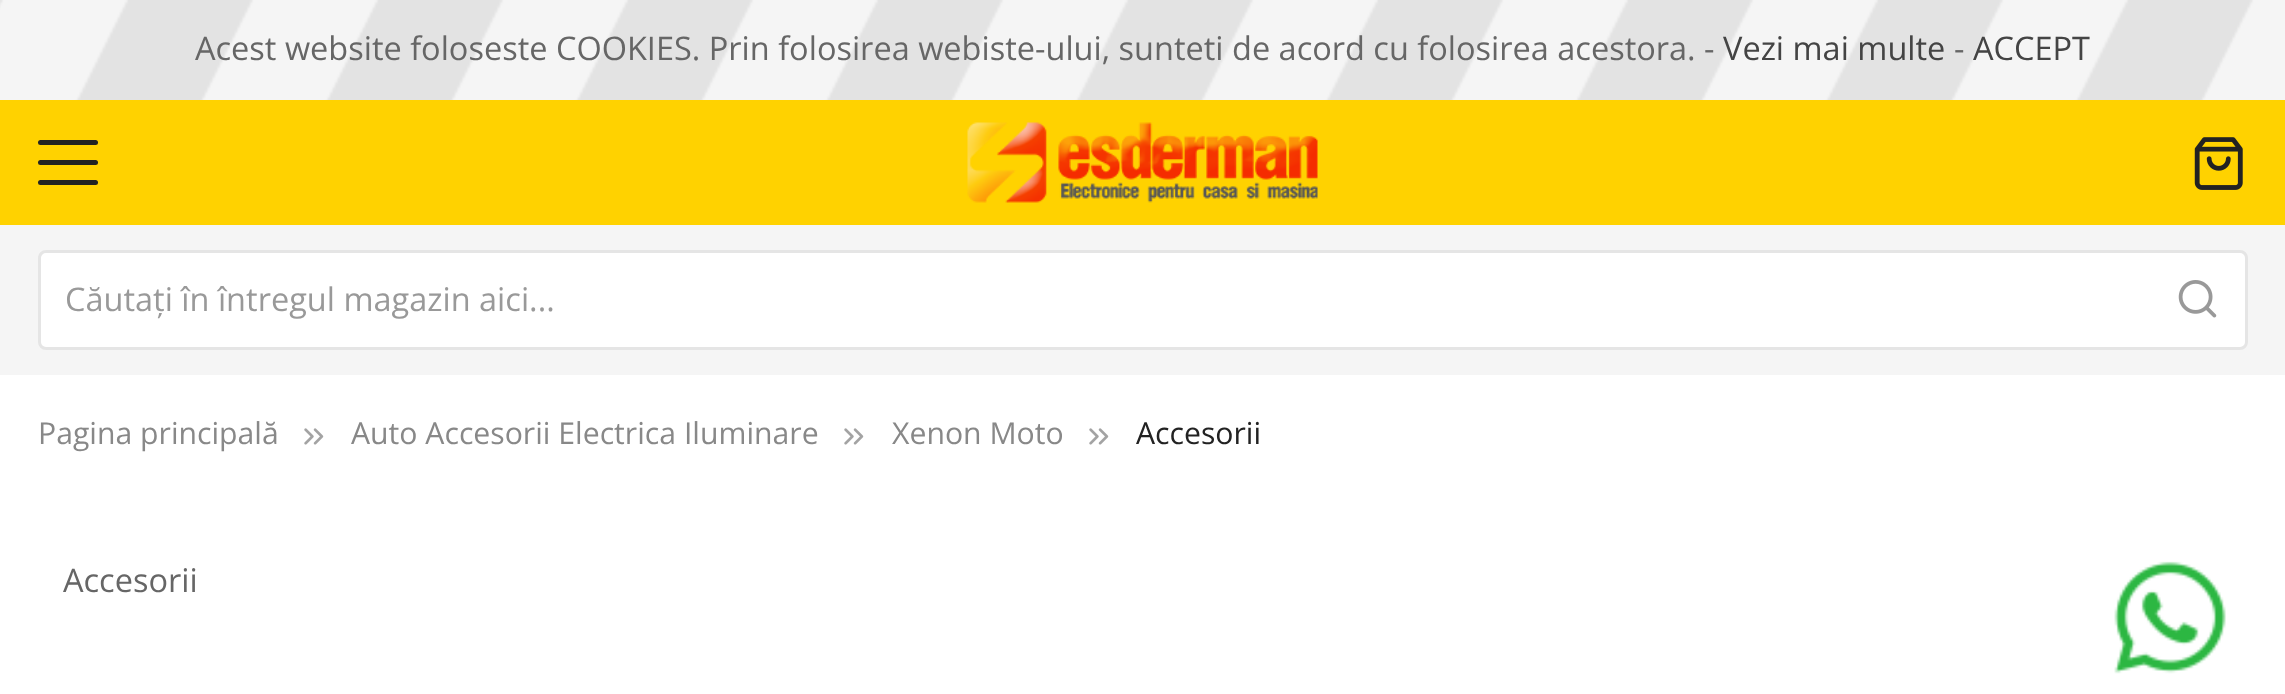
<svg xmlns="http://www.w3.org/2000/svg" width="2285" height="694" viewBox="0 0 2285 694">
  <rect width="100%" height="100%" fill="#fff"/>
  <image x="0" y="0" width="2285" height="100" href="img/1.png"/>
  <path d="M0 100h2285v125H0z" fill="#ffd200"/>
  <rect x="38" y="140" width="60" height="5" rx="2.5" fill="#222"/>
  <rect x="38" y="160" width="60" height="5" rx="2.5" fill="#222"/>
  <rect x="38" y="180" width="60" height="5" rx="2.5" fill="#222"/>
  <image x="967" y="122" width="351" height="81" href="img/2.png"/>
  <image x="2194" y="137" width="49" height="53" href="img/3.png"/>
  <path d="M0 225h2285v150H0z" fill="#f5f5f5"/>
  <rect x="39.5" y="251.5" width="2207" height="97" rx="6.5" fill="#fff" stroke="#e5e5e5" stroke-width="3"/>
  <image x="2178" y="280" width="39" height="38" href="img/4.png"/>
  <image x="304" y="428" width="20" height="17" href="img/5.png"/>
  <image x="844" y="428" width="20" height="17" href="img/5.png"/>
  <image x="1089" y="428" width="20" height="17" href="img/5.png"/>
  <image x="2114" y="561" width="112" height="113" href="img/6.png"/>
  <text x="195" y="60" font-family="Open Sans" font-size="32.5" fill="#666">Acest website foloseste COOKIES. Prin folosirea webiste-ului, sunteti de acord cu folosirea acestora. -</text>
  <text x="1723" y="60" font-family="Open Sans" font-size="32.5" fill="#444">Vezi mai multe</text>
  <text x="1954" y="60" font-family="Open Sans" font-size="32.5" fill="#666">-</text>
  <text x="1973" y="60" font-family="Open Sans" font-size="32.5" fill="#444">ACCEPT</text>
  <text x="65" y="311" font-family="Open Sans" font-size="32.5" fill="#999">Căutați în întregul magazin aici...</text>
  <g font-family="Open Sans" font-size="30.2" fill="#888">
    <text x="38" y="444">Pagina principală</text>
    <text x="351" y="444">Auto Accesorii Electrica Iluminare</text>
    <text x="892" y="444">Xenon Moto</text>
  </g>
  <text x="1136" y="444" font-family="Open Sans" font-size="30.2" fill="#222">Accesorii</text>
  <text x="63" y="592" font-family="Open Sans" font-size="32.5" fill="#666">Accesorii</text>
</svg>
